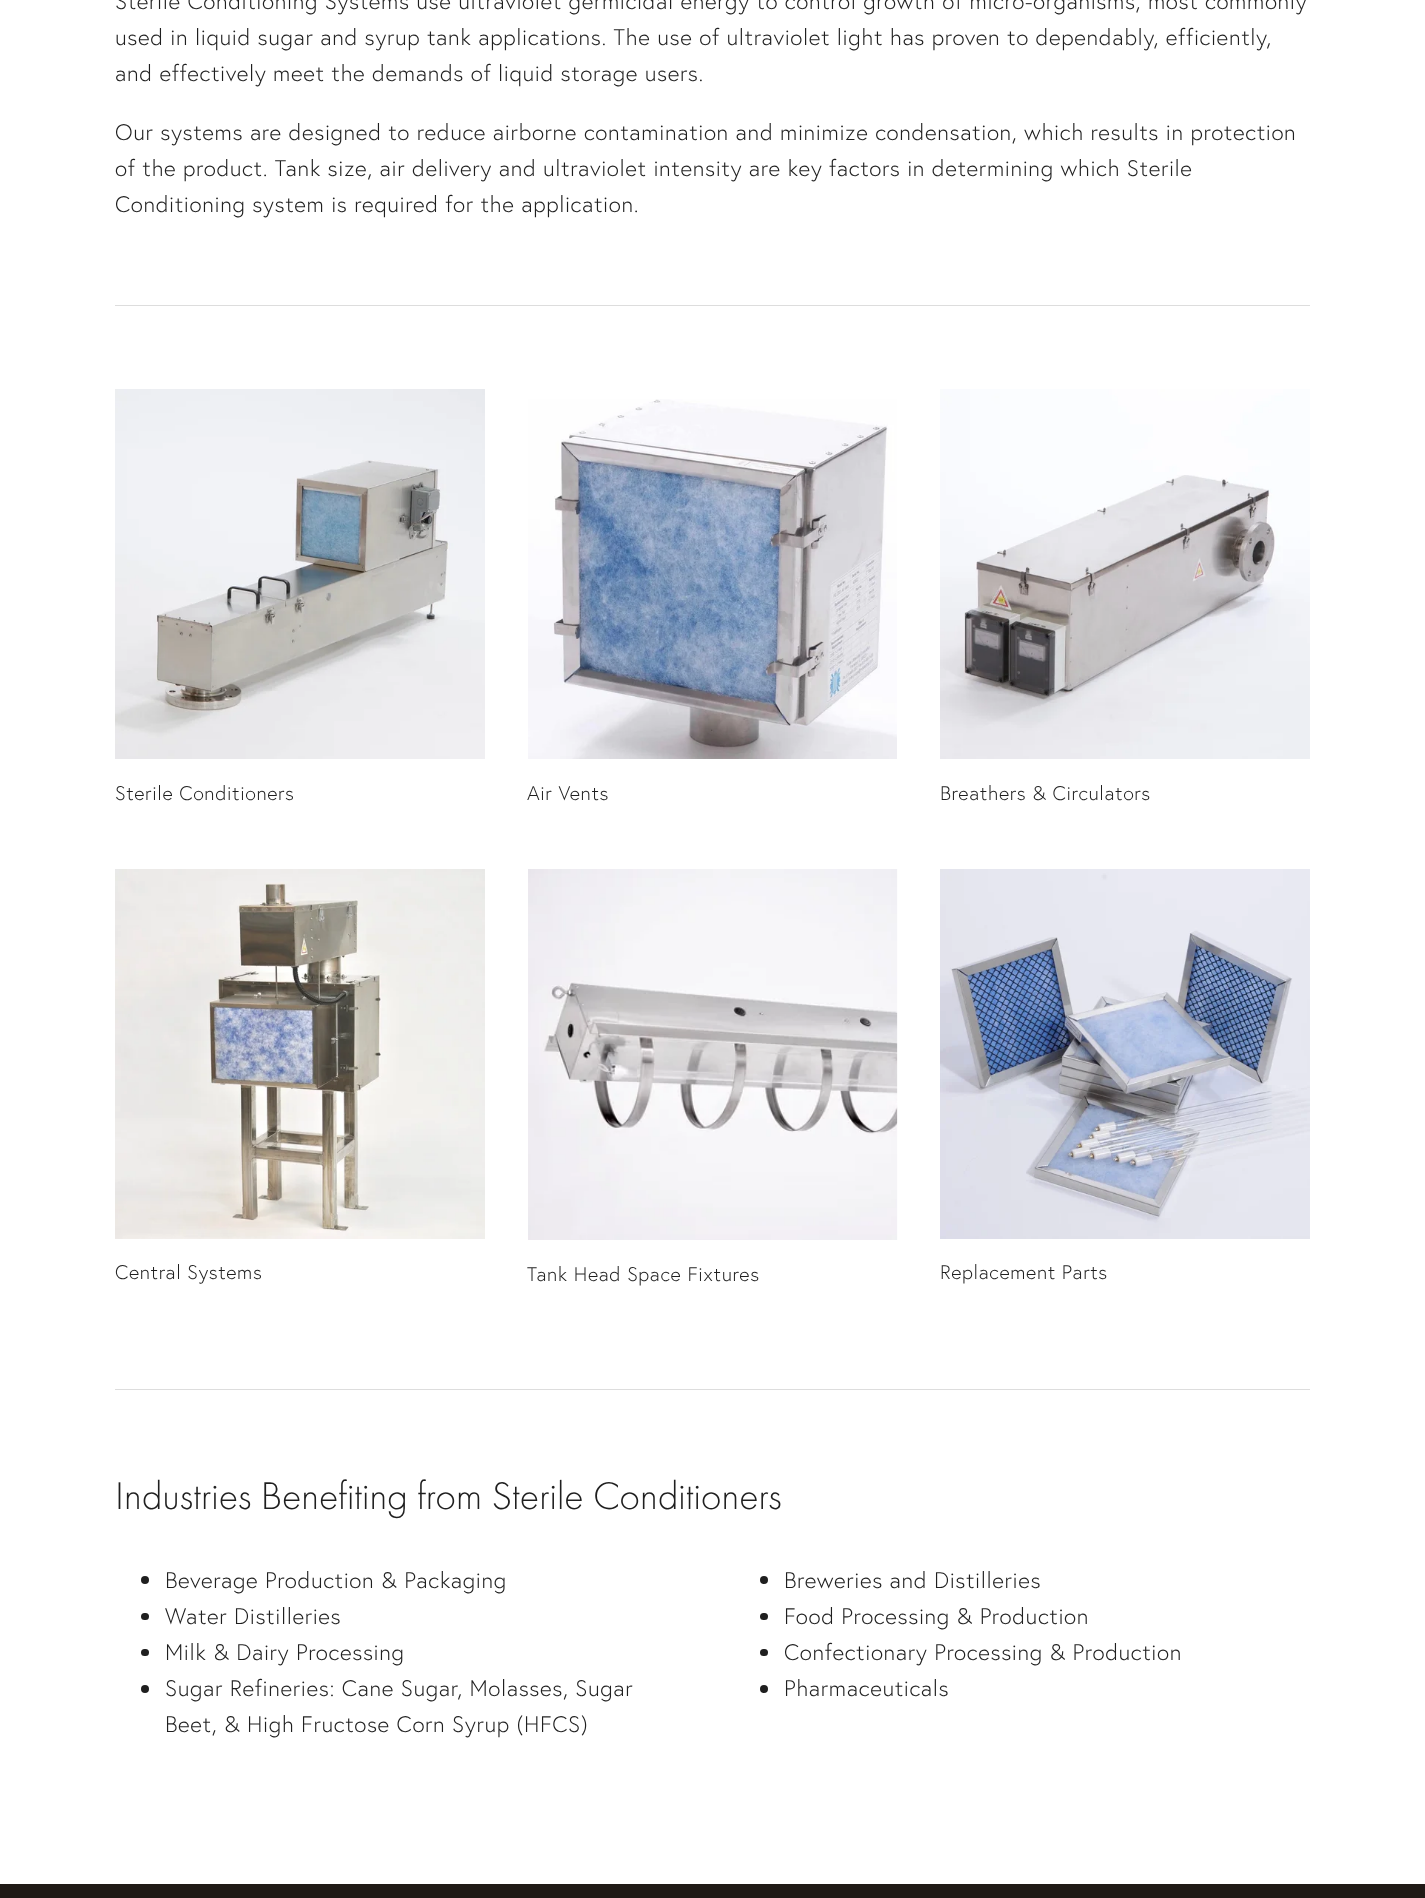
<svg xmlns="http://www.w3.org/2000/svg" width="1425" height="1898" viewBox="0 0 1425 1898">
  <rect width="100%" height="100%" fill="#fff"/>
  <path d="M115 305h1195v1H115z" fill="#ddd"/>
  <image x="115" y="389" width="370" height="370" href="img/1.png"/>
  <image x="528" y="399" width="369" height="360" href="img/2.png"/>
  <image x="940" y="389" width="370" height="370" href="img/3.png"/>
  <image x="115" y="869" width="370" height="370" href="img/4.png"/>
  <image x="528" y="869" width="370" height="371" href="img/5.png"/>
  <image x="940" y="869" width="370" height="370" href="img/6.png"/>
  <path d="M115 1389h1195v1H115z" fill="#ddd"/>
  <circle cx="145" cy="1580" r="4" fill="#1f1f1f"/>
  <rect x="141" y="1613" width="8" height="7" rx="3.5" fill="#1f1f1f"/>
  <rect x="141" y="1649" width="8" height="7" rx="3.5" fill="#1f1f1f"/>
  <circle cx="145" cy="1689" r="4" fill="#1f1f1f"/>
  <circle cx="764" cy="1580" r="4" fill="#1f1f1f"/>
  <rect x="760" y="1613" width="8" height="7" rx="3.5" fill="#1f1f1f"/>
  <rect x="760" y="1649" width="8" height="7" rx="3.5" fill="#1f1f1f"/>
  <circle cx="764" cy="1689" r="4" fill="#1f1f1f"/>
  <path d="M0 1884h1425v14H0z" fill="#201a16"/>
  <g font-family="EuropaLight" font-size="22.5" font-weight="300" letter-spacing="0.62" fill="#1f1f1f">
    <text x="115" y="9">Sterile Conditioning Systems use ultraviolet germicidal energy to control growth of micro-organisms, most commonly</text>
    <text x="115" y="45">used in liquid sugar and syrup tank applications. The use of ultraviolet light has proven to dependably, efficiently,</text>
    <text x="115" y="81">and effectively meet the demands of liquid storage users.</text>
    <text x="115" y="140">Our systems are designed to reduce airborne contamination and minimize condensation, which results in protection</text>
    <text x="115" y="176">of the product. Tank size, air delivery and ultraviolet intensity are key factors in determining which Sterile</text>
    <text x="115" y="212">Conditioning system is required for the application.</text>
  </g>
  <g font-family="EuropaLight" font-size="19.75" font-weight="300" letter-spacing="0.62" fill="#1f1f1f">
    <text x="115" y="800">Sterile Conditioners</text>
    <text x="527" y="800">Air Vents</text>
    <text x="940" y="800">Breathers &amp; Circulators</text>
    <text x="115" y="1279">Central Systems</text>
    <text x="527" y="1281">Tank Head Space Fixtures</text>
    <text x="940" y="1279">Replacement Parts</text>
  </g>
  <text x="115" y="1509" font-family="Futura PT" font-size="40" font-weight="300" fill="#1f1f1f">Industries Benefiting from Sterile Conditioners</text>
  <g font-family="EuropaLight" font-size="22.5" font-weight="300" letter-spacing="0.62" fill="#1f1f1f">
    <text x="165" y="1588">Beverage Production &amp; Packaging</text>
    <text x="165" y="1624">Water Distilleries</text>
    <text x="165" y="1660">Milk &amp; Dairy Processing</text>
    <text x="165" y="1696">Sugar Refineries: Cane Sugar, Molasses, Sugar</text>
    <text x="165" y="1732">Beet, &amp; High Fructose Corn Syrup (HFCS)</text>
    <text x="784" y="1588">Breweries and Distilleries</text>
    <text x="784" y="1624">Food Processing &amp; Production</text>
    <text x="784" y="1660">Confectionary Processing &amp; Production</text>
    <text x="784" y="1696">Pharmaceuticals</text>
  </g>
</svg>
